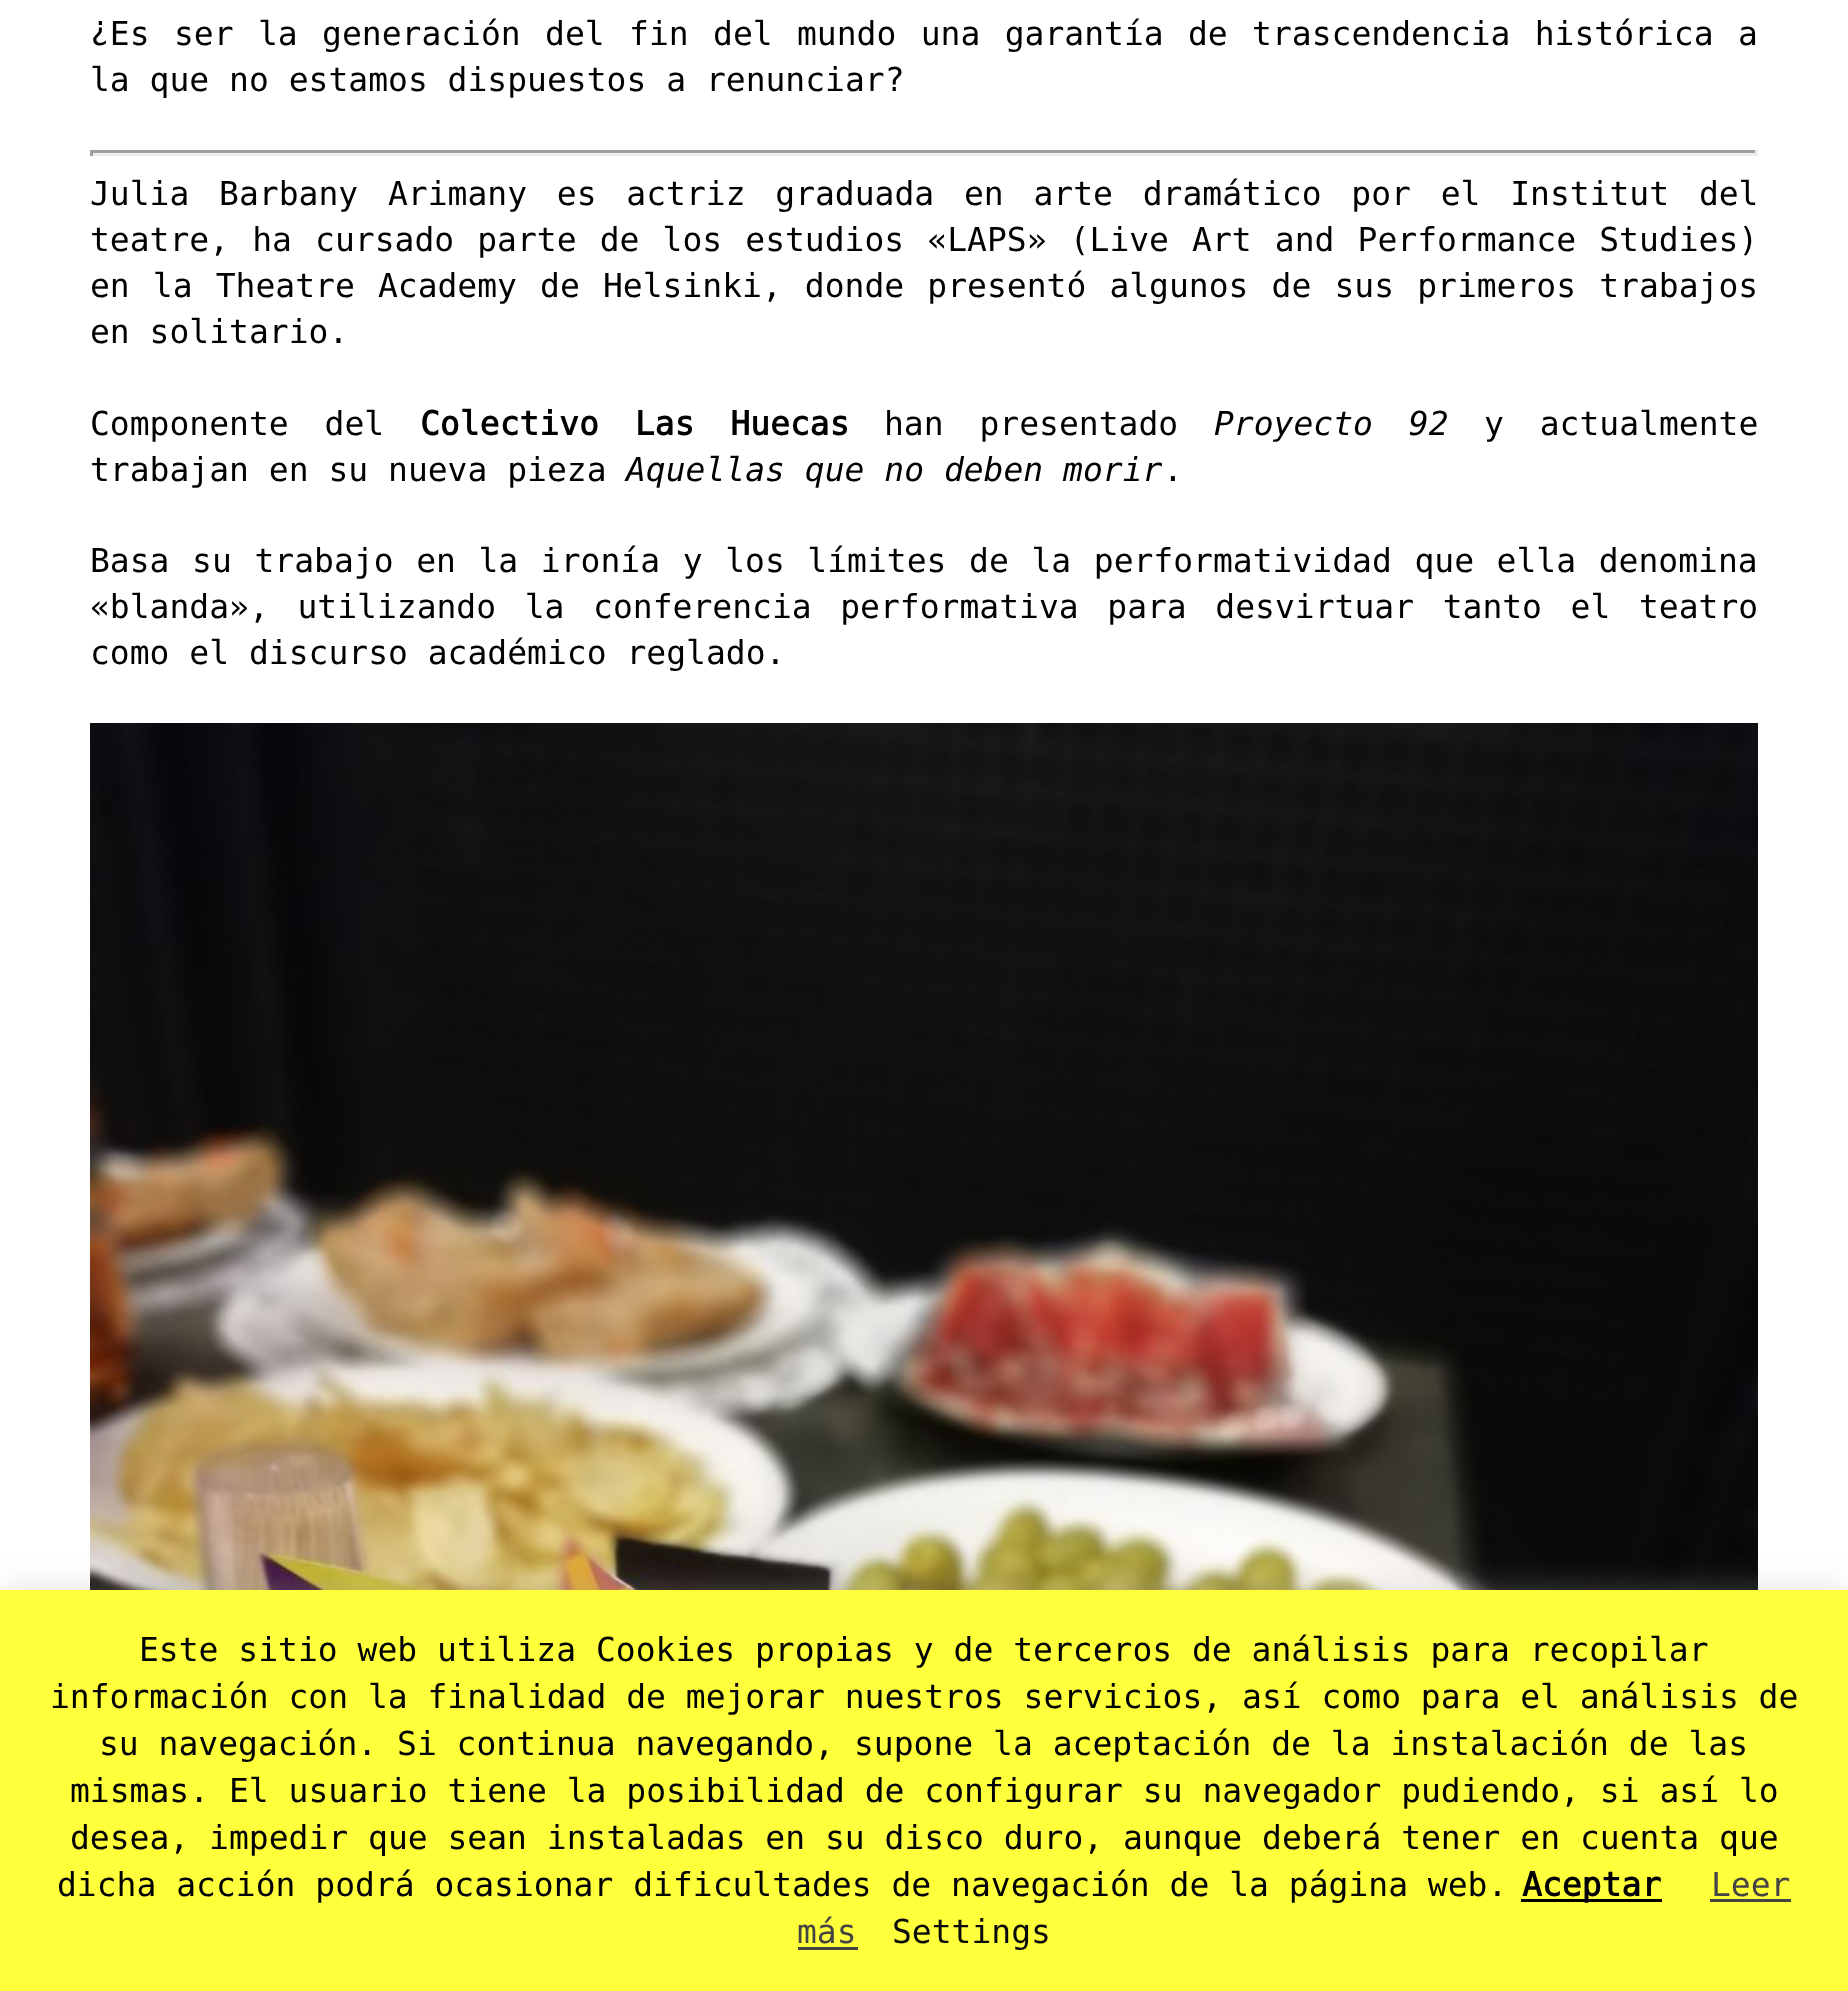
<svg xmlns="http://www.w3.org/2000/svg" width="1848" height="1991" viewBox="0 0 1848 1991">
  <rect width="100%" height="100%" fill="#fff"/>
  <path d="M90 150h1668v3H90z" fill="#9f9f9f"/>
  <path d="M1755 150h3v6H1755z" fill="#eee"/>
  <path d="M90 153h1668v3H90z" fill="#eee"/>
  <path d="M90 150h3v6H90z" fill="#9f9f9f"/>
  <image x="90" y="723" width="1668" height="867" href="img/1.png"/>
  <path d="M0 1587h1848v402H0z" fill="#acabab4d" filter="blur(15px)"/>
  <path d="M0 1590h1848v401H0z" fill="#ffff3c"/>
  <path d="M1521 1899h141v3H1521z" fill="#000"/>
  <path d="M1710 1899h81v3H1710z" fill="#444"/>
  <path d="M798 1947h60v3H798z" fill="#444"/>
  <g font-family="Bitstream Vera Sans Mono" font-size="33" fill="#000">
    <text x="90" y="45" word-spacing="4.5">¿Es ser la generación del fin del mundo una garantía de trascendencia histórica a</text>
    <text x="90" y="91">la que no estamos dispuestos a renunciar?</text>
    <text x="90" y="205" word-spacing="9.9">Julia Barbany Arimany es actriz graduada en arte dramático por el Institut del</text>
    <text x="90" y="251" word-spacing="3.25">teatre, ha cursado parte de los estudios «LAPS» (Live Art and Performance Studies)</text>
    <text x="90" y="297" word-spacing="3.25">en la Theatre Academy de Helsinki, donde presentó algunos de sus primeros trabajos</text>
    <text x="90" y="343">en solitario.</text>
    <text x="90" y="435" word-spacing="16">Componente del</text>
  </g>
  <text x="420" y="435" word-spacing="16" font-family="Bitstream Vera Sans Mono" font-size="33" font-weight="bold" fill="#000">Colectivo Las Huecas</text>
  <text x="884" y="435" word-spacing="16" font-family="Bitstream Vera Sans Mono" font-size="33" fill="#000">han presentado</text>
  <text x="1214" y="435" word-spacing="16" font-family="Bitstream Vera Sans Mono" font-size="33" font-style="italic" fill="#000">Proyecto 92</text>
  <g font-family="Bitstream Vera Sans Mono" font-size="33" fill="#000">
    <text x="1484" y="435" word-spacing="16">y actualmente</text>
    <text x="90" y="481">trabajan en su nueva pieza</text>
  </g>
  <text x="626" y="481" font-family="Bitstream Vera Sans Mono" font-size="33" font-style="italic" fill="#000">Aquellas que no deben morir</text>
  <g font-family="Bitstream Vera Sans Mono" font-size="33" fill="#000">
    <text x="1163" y="481">.</text>
    <text x="90" y="572" word-spacing="2.75">Basa su trabajo en la ironía y los límites de la performatividad que ella denomina</text>
    <text x="90" y="618" word-spacing="8.75">«blanda», utilizando la conferencia performativa para desvirtuar tanto el teatro</text>
    <text x="90" y="664">como el discurso académico reglado.</text>
    <text x="139" y="1661">Este sitio web utiliza Cookies propias y de terceros de análisis para recopilar</text>
    <text x="50" y="1708">información con la finalidad de mejorar nuestros servicios, así como para el análisis de</text>
    <text x="99" y="1755">su navegación. Si continua navegando, supone la aceptación de la instalación de las</text>
    <text x="70" y="1802">mismas. El usuario tiene la posibilidad de configurar su navegador pudiendo, si así lo</text>
    <text x="70" y="1849">desea, impedir que sean instaladas en su disco duro, aunque deberá tener en cuenta que</text>
    <text x="57" y="1896">dicha acción podrá ocasionar dificultades de navegación de la página web.</text>
  </g>
  <text x="1522" y="1896" font-family="Bitstream Vera Sans Mono" font-size="33" font-weight="bold" fill="#000">Aceptar</text>
  <g font-family="Bitstream Vera Sans Mono" font-size="33" fill="#444">
    <text x="1711" y="1896">Leer</text>
    <text x="797" y="1943">más</text>
  </g>
  <text x="892" y="1943" font-family="Bitstream Vera Sans Mono" font-size="33" fill="#0a0a0a">Settings</text>
</svg>
